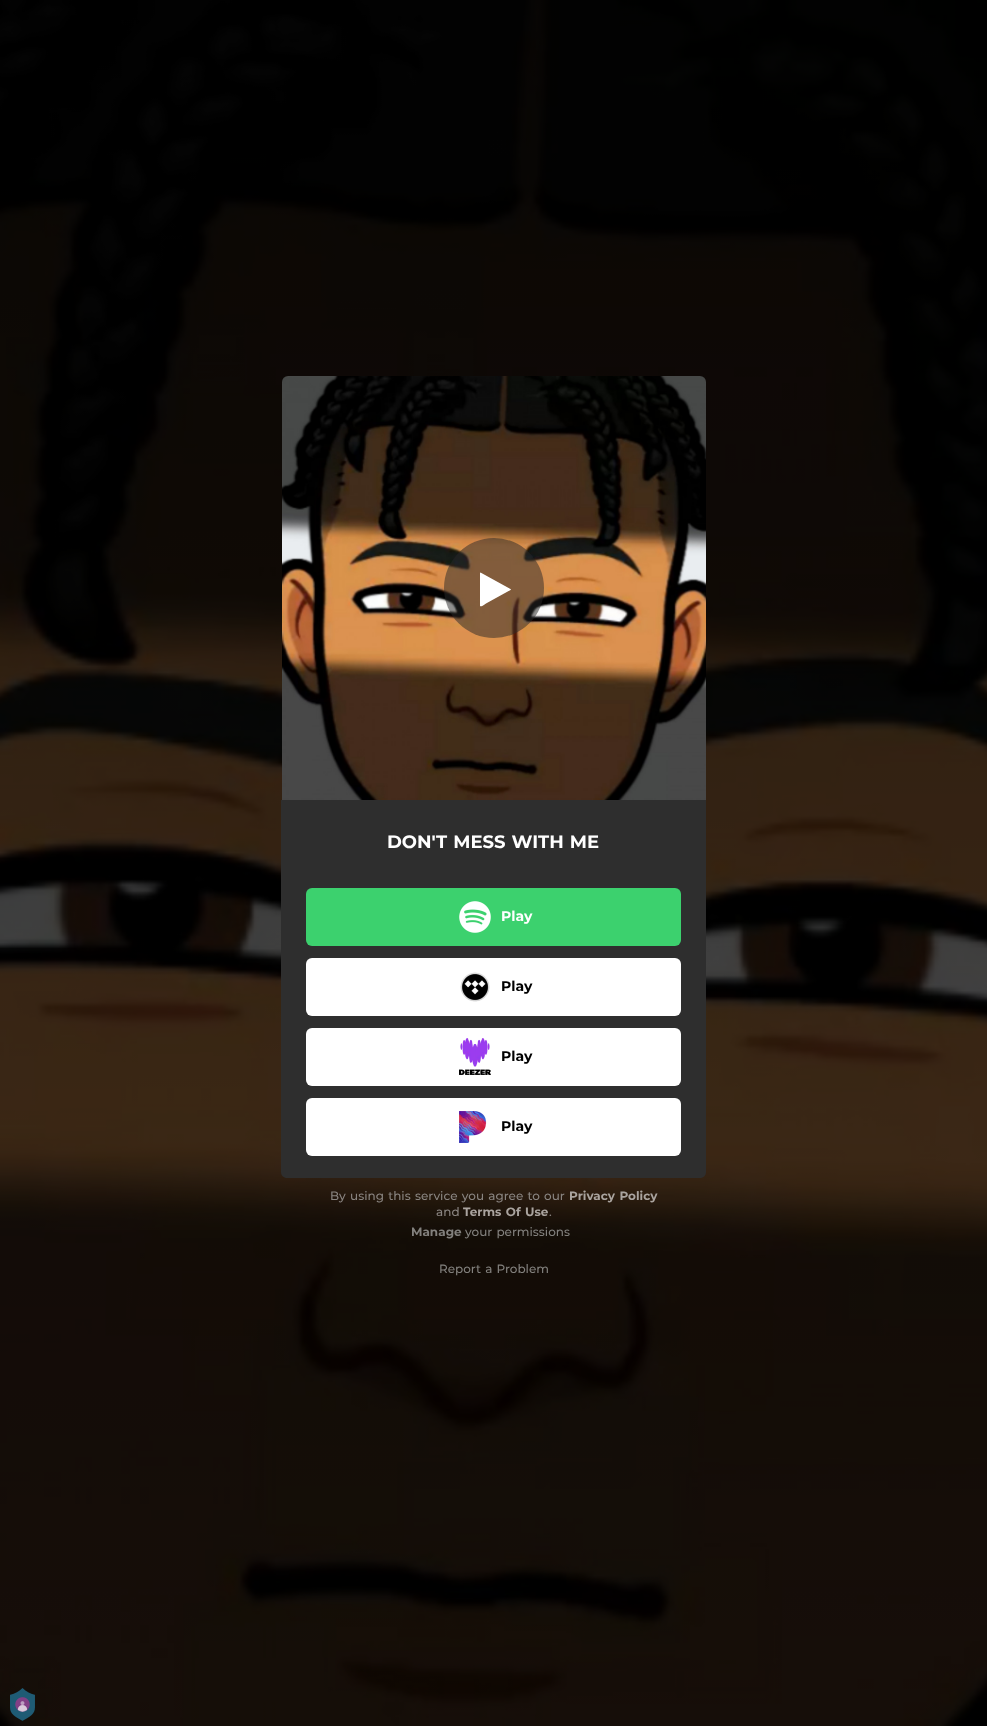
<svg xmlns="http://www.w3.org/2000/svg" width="987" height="1726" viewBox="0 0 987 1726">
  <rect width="100%" height="100%" fill="#fff"/>
  <image x="0" y="0" width="987" height="1726" href="img/1.png"/>
  <image x="282" y="376" width="424" height="424" href="img/2.png"/>
  <circle cx="494" cy="588" r="50" fill="#28282880"/>
  <path d="M510.5 590L486 603.5C485.5 604 481 607.5 480 606V573L480.5 572.5L510.5 589L511 589.5L510.5 590" fill="#fff"/>
  <path d="M281 800H706V1172C706 1175.5 703.5 1178 700 1178H287C283.5 1178 281 1175.5 281 1172Z" fill="#2e2e2e"/>
  <rect x="306" y="888" width="375" height="58" rx="6" fill="#3cd16e"/>
  <image x="459" y="901" width="32" height="32" href="img/3.png"/>
  <rect x="306" y="958" width="375" height="58" rx="6" fill="#fff"/>
  <image x="460" y="972" width="30" height="30" href="img/4.png"/>
  <rect x="306" y="1028" width="375" height="58" rx="6" fill="#fff"/>
  <image x="459" y="1038" width="32" height="37" href="img/5.png"/>
  <rect x="306" y="1098" width="375" height="58" rx="6" fill="#fff"/>
  <image x="459" y="1111" width="28" height="32" href="img/6.png"/>
  <image x="10" y="1688" width="25" height="33" href="img/7.png"/>
  <text x="387" y="848" word-spacing="1" font-family="Montserrat" font-size="18" font-weight="bold" fill="#fff">DON'T MESS WITH ME</text>
  <text x="501" y="921" font-family="Montserrat" font-size="14" font-weight="bold" fill="#fff">Play</text>
  <g font-family="Montserrat" font-size="14" font-weight="bold" fill="#000">
    <text x="501" y="991">Play</text>
    <text x="501" y="1061">Play</text>
    <text x="501" y="1131">Play</text>
  </g>
  <text x="330" y="1200" word-spacing="1" font-family="Montserrat" font-size="12" font-weight="500" fill="#898480">By using this service you agree to our</text>
  <text x="569" y="1200" word-spacing="1" font-family="Montserrat" font-size="12" font-weight="bold" fill="#aaa49f">Privacy Policy</text>
  <text x="436" y="1216" font-family="Montserrat" font-size="12" font-weight="500" fill="#898480">and</text>
  <text x="463" y="1216" word-spacing="1" font-family="Montserrat" font-size="12" font-weight="bold" fill="#aaa49f">Terms Of Use</text>
  <text x="549" y="1216" font-family="Montserrat" font-size="12" font-weight="500" fill="#898480">.</text>
  <text x="411" y="1236" font-family="Montserrat" font-size="12" font-weight="bold" fill="#82807d">Manage</text>
  <g font-family="Montserrat" font-size="12" font-weight="500" fill="#82807d">
    <text x="465" y="1236" word-spacing="1">your permissions</text>
    <text x="439" y="1273" word-spacing="1">Report a Problem</text>
  </g>
</svg>
